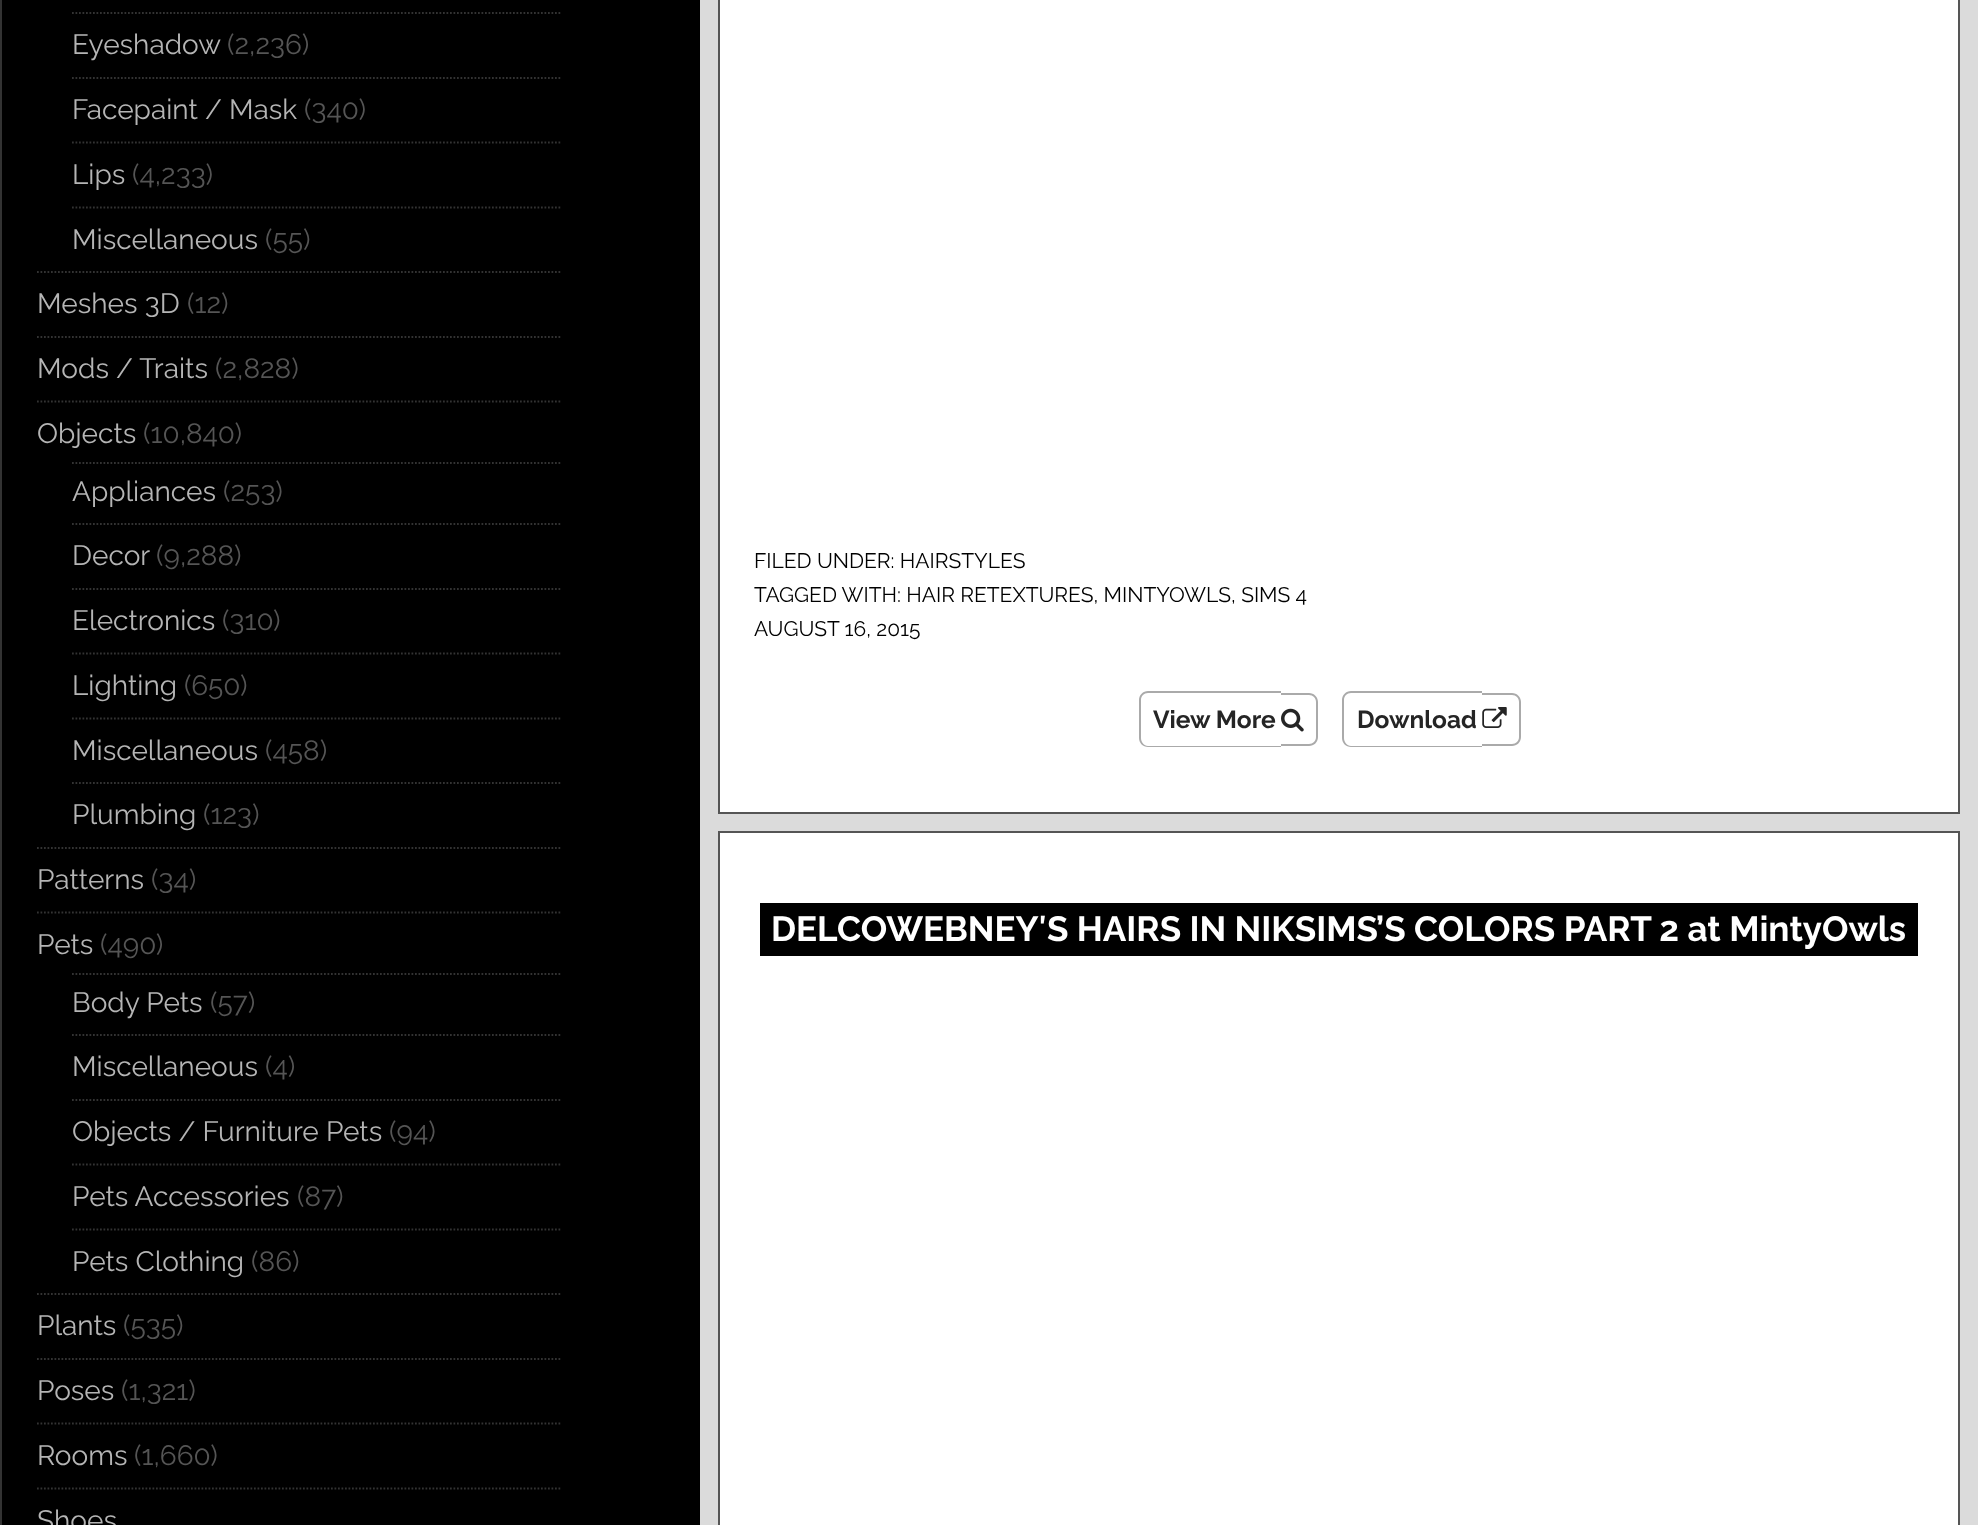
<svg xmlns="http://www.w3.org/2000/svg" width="1978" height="1525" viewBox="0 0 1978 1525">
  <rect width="100%" height="100%" fill="#fff"/>
  <path d="M1 -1h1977v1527H1z" fill="none" stroke="#333" stroke-width="2"/>
  <path d="M2 0h698v1525H2z" fill="#000"/>
  <path d="M37 272H562" fill="none" stroke="#333" stroke-width="1.8" stroke-dasharray="1.75 1.75"/>
  <path d="M72 13H562" fill="none" stroke="#333" stroke-width="1.8" stroke-dasharray="1.75 1.75"/>
  <path d="M72 78H562" fill="none" stroke="#333" stroke-width="1.8" stroke-dasharray="1.75 1.75"/>
  <path d="M72 142.5H562" fill="none" stroke="#333" stroke-width="1.8" stroke-dasharray="1.75 1.75"/>
  <path d="M72 207.5H562" fill="none" stroke="#333" stroke-width="1.8" stroke-dasharray="1.75 1.75"/>
  <path d="M37 337H562" fill="none" stroke="#333" stroke-width="1.8" stroke-dasharray="1.75 1.75"/>
  <path d="M37 401.5H562" fill="none" stroke="#333" stroke-width="1.8" stroke-dasharray="1.75 1.75"/>
  <path d="M37 848H562" fill="none" stroke="#333" stroke-width="1.8" stroke-dasharray="1.75 1.75"/>
  <path d="M72 463H562" fill="none" stroke="#333" stroke-width="1.8" stroke-dasharray="1.75 1.75"/>
  <path d="M72 524H562" fill="none" stroke="#333" stroke-width="1.8" stroke-dasharray="1.75 1.75"/>
  <path d="M72 589H562" fill="none" stroke="#333" stroke-width="1.8" stroke-dasharray="1.75 1.75"/>
  <path d="M72 653.5H562" fill="none" stroke="#333" stroke-width="1.8" stroke-dasharray="1.75 1.75"/>
  <path d="M72 718.5H562" fill="none" stroke="#333" stroke-width="1.8" stroke-dasharray="1.75 1.75"/>
  <path d="M72 783H562" fill="none" stroke="#333" stroke-width="1.8" stroke-dasharray="1.75 1.75"/>
  <path d="M37 912.5H562" fill="none" stroke="#333" stroke-width="1.8" stroke-dasharray="1.75 1.75"/>
  <path d="M37 1294H562" fill="none" stroke="#333" stroke-width="1.8" stroke-dasharray="1.75 1.75"/>
  <path d="M72 974H562" fill="none" stroke="#333" stroke-width="1.8" stroke-dasharray="1.75 1.75"/>
  <path d="M72 1035H562" fill="none" stroke="#333" stroke-width="1.8" stroke-dasharray="1.75 1.75"/>
  <path d="M72 1100H562" fill="none" stroke="#333" stroke-width="1.8" stroke-dasharray="1.75 1.75"/>
  <path d="M72 1164.5H562" fill="none" stroke="#333" stroke-width="1.8" stroke-dasharray="1.75 1.75"/>
  <path d="M72 1229.5H562" fill="none" stroke="#333" stroke-width="1.8" stroke-dasharray="1.75 1.75"/>
  <path d="M37 1359H562" fill="none" stroke="#333" stroke-width="1.8" stroke-dasharray="1.75 1.75"/>
  <path d="M37 1423.5H562" fill="none" stroke="#333" stroke-width="1.8" stroke-dasharray="1.75 1.75"/>
  <path d="M37 1488.5H562" fill="none" stroke="#333" stroke-width="1.8" stroke-dasharray="1.75 1.75"/>
  <path d="M700 0h1278v1525H700z" fill="#dbdbdb"/>
  <path d="M719 -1h1240v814H719z" fill="#fff" stroke="#555" stroke-width="2"/>
  <path d="M1148 691H1281V747H1148C1143 747 1139 743 1139 738V700C1139 695 1143 691 1148 691ZM1148 693H1281V746H1148C1144 746 1141 742 1141 738V700C1141 696 1144 693 1148 693Z" fill="#aaa" fill-rule="evenodd"/>
  <path d="M1281 693H1309C1314 693 1318 697 1318 702V737C1318 742 1314 746 1309 746H1281ZM1281 695H1309C1313 695 1316 698 1316 702V737C1316 741 1313 744 1309 744H1281Z" fill="#aaa" fill-rule="evenodd"/>
  <image x="1281" y="708" width="23" height="24" href="img/1.png"/>
  <path d="M1351 691H1482V747H1351C1346 747 1342 743 1342 738V700C1342 695 1346 691 1351 691ZM1351 693H1482V746H1351C1347 746 1344 742 1344 738V700C1344 696 1347 693 1351 693Z" fill="#aaa" fill-rule="evenodd"/>
  <path d="M1482 693H1512C1517 693 1521 697 1521 702V737C1521 742 1517 746 1512 746H1482ZM1482 695H1512C1516 695 1519 698 1519 702V737C1519 741 1516 744 1512 744H1482Z" fill="#aaa" fill-rule="evenodd"/>
  <image x="1482" y="707" width="25" height="21" href="img/2.png"/>
  <path d="M719 832h1240v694H719z" fill="#fff" stroke="#555" stroke-width="2"/>
  <path d="M760 903h1158v53H760z" fill="#000"/>
  <text x="72" y="54" font-family="Raleway" font-size="28" font-weight="100" fill="#b5b5b5">Eyeshadow</text>
  <text x="227" y="54" font-family="Raleway" font-size="28" font-weight="100" fill="#555">(2,236)</text>
  <text x="72" y="119" font-family="Raleway" font-size="28" font-weight="100" fill="#b5b5b5">Facepaint / Mask</text>
  <text x="304" y="119" font-family="Raleway" font-size="28" font-weight="100" fill="#555">(340)</text>
  <text x="72" y="184" font-family="Raleway" font-size="28" font-weight="100" fill="#b5b5b5">Lips</text>
  <text x="132" y="184" font-family="Raleway" font-size="28" font-weight="100" fill="#555">(4,233)</text>
  <text x="72" y="249" font-family="Raleway" font-size="28" font-weight="100" fill="#b5b5b5">Miscellaneous</text>
  <text x="265" y="249" font-family="Raleway" font-size="28" font-weight="100" fill="#555">(55)</text>
  <text x="37" y="313" font-family="Raleway" font-size="28" font-weight="100" fill="#b5b5b5">Meshes 3D</text>
  <text x="187" y="313" font-family="Raleway" font-size="28" font-weight="100" fill="#555">(12)</text>
  <text x="37" y="378" font-family="Raleway" font-size="28" font-weight="100" fill="#b5b5b5">Mods / Traits</text>
  <text x="215" y="378" font-family="Raleway" font-size="28" font-weight="100" fill="#555">(2,828)</text>
  <text x="37" y="443" font-family="Raleway" font-size="28" font-weight="100" fill="#b5b5b5">Objects</text>
  <text x="143" y="443" font-family="Raleway" font-size="28" font-weight="100" fill="#555">(10,840)</text>
  <text x="72" y="501" font-family="Raleway" font-size="28" font-weight="100" fill="#b5b5b5">Appliances</text>
  <text x="223" y="501" font-family="Raleway" font-size="28" font-weight="100" fill="#555">(253)</text>
  <text x="72" y="565" font-family="Raleway" font-size="28" font-weight="100" fill="#b5b5b5">Decor</text>
  <text x="156" y="565" font-family="Raleway" font-size="28" font-weight="100" fill="#555">(9,288)</text>
  <text x="72" y="630" font-family="Raleway" font-size="28" font-weight="100" fill="#b5b5b5">Electronics</text>
  <text x="222" y="630" font-family="Raleway" font-size="28" font-weight="100" fill="#555">(310)</text>
  <text x="72" y="695" font-family="Raleway" font-size="28" font-weight="100" fill="#b5b5b5">Lighting</text>
  <text x="184" y="695" font-family="Raleway" font-size="28" font-weight="100" fill="#555">(650)</text>
  <text x="72" y="760" font-family="Raleway" font-size="28" font-weight="100" fill="#b5b5b5">Miscellaneous</text>
  <text x="265" y="760" font-family="Raleway" font-size="28" font-weight="100" fill="#555">(458)</text>
  <text x="72" y="824" font-family="Raleway" font-size="28" font-weight="100" fill="#b5b5b5">Plumbing</text>
  <text x="203" y="824" font-family="Raleway" font-size="28" font-weight="100" fill="#555">(123)</text>
  <text x="37" y="889" font-family="Raleway" font-size="28" font-weight="100" fill="#b5b5b5">Patterns</text>
  <text x="151" y="889" font-family="Raleway" font-size="28" font-weight="100" fill="#555">(34)</text>
  <text x="37" y="954" font-family="Raleway" font-size="28" font-weight="100" fill="#b5b5b5">Pets</text>
  <text x="100" y="954" font-family="Raleway" font-size="28" font-weight="100" fill="#555">(490)</text>
  <text x="72" y="1012" font-family="Raleway" font-size="28" font-weight="100" fill="#b5b5b5">Body Pets</text>
  <text x="210" y="1012" font-family="Raleway" font-size="28" font-weight="100" fill="#555">(57)</text>
  <text x="72" y="1076" font-family="Raleway" font-size="28" font-weight="100" fill="#b5b5b5">Miscellaneous</text>
  <text x="265" y="1076" font-family="Raleway" font-size="28" font-weight="100" fill="#555">(4)</text>
  <text x="72" y="1141" font-family="Raleway" font-size="28" font-weight="100" fill="#b5b5b5">Objects / Furniture Pets</text>
  <text x="389" y="1141" font-family="Raleway" font-size="28" font-weight="100" fill="#555">(94)</text>
  <text x="72" y="1206" font-family="Raleway" font-size="28" font-weight="100" fill="#b5b5b5">Pets Accessories</text>
  <text x="297" y="1206" font-family="Raleway" font-size="28" font-weight="100" fill="#555">(87)</text>
  <text x="72" y="1271" font-family="Raleway" font-size="28" font-weight="100" fill="#b5b5b5">Pets Clothing</text>
  <text x="251" y="1271" font-family="Raleway" font-size="28" font-weight="100" fill="#555">(86)</text>
  <text x="37" y="1335" font-family="Raleway" font-size="28" font-weight="100" fill="#b5b5b5">Plants</text>
  <text x="123" y="1335" font-family="Raleway" font-size="28" font-weight="100" fill="#555">(535)</text>
  <text x="37" y="1400" font-family="Raleway" font-size="28" font-weight="100" fill="#b5b5b5">Poses</text>
  <text x="121" y="1400" font-family="Raleway" font-size="28" font-weight="100" fill="#555">(1,321)</text>
  <text x="37" y="1465" font-family="Raleway" font-size="28" font-weight="100" fill="#b5b5b5">Rooms</text>
  <text x="134" y="1465" font-family="Raleway" font-size="28" font-weight="100" fill="#555">(1,660)</text>
  <text x="37" y="1530" font-family="Raleway" font-size="28" font-weight="100" fill="#b5b5b5">Shoes</text>
  <g font-family="Raleway" font-size="21" font-weight="100" fill="#000">
    <text x="754" y="568">FILED UNDER: HAIRSTYLES</text>
    <text x="754" y="602">TAGGED WITH: HAIR RETEXTURES, MINTYOWLS, SIMS 4</text>
    <text x="754" y="636">AUGUST 16, 2015</text>
  </g>
  <g font-family="'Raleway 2'" font-size="24.5" font-weight="100" fill="#252525">
    <text x="1153" y="728">View More</text>
    <text x="1357" y="728">Download</text>
  </g>
  <text x="771" y="941" font-family="'Raleway 2'" font-size="35" font-weight="100" fill="#fff">DELCOWEBNEY′S HAIRS IN NIKSIMS’S COLORS PART 2 at MintyOwls</text>
</svg>
